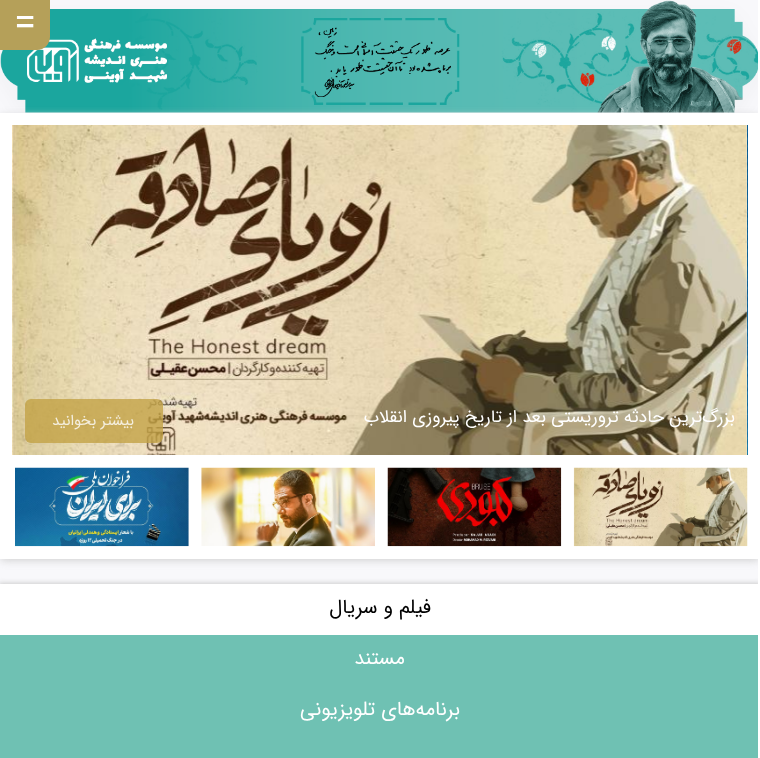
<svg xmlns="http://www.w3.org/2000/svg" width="760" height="758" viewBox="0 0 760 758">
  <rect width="100%" height="100%" fill="#f8f8fb"/>
  <image x="0" y="0" width="758" height="113" href="img/1.png"/>
  <path d="M1 116h758v444H1z" fill="#ccc" filter="blur(4.5px)"/>
  <path d="M-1 583h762v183H-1z" fill="#ccc" filter="blur(2.5px)"/>
  <path d="M758 0h2v758H758z" fill="#fff"/>
  <path d="M0 0H50V37C50 44 44 50 37 50H0Z" fill="#b5a059"/>
  <path d="M0 113h758v446H0z" fill="#fff"/>
  <image x="747" y="125" width="1" height="330" href="img/2.png"/>
  <image x="12" y="125" width="735" height="330" href="img/3.png"/>
  <rect x="25" y="399" width="138" height="44" rx="6" fill="#c3a246cc"/>
  <image x="573" y="467" width="175" height="80" href="img/4.png"/>
  <image x="387" y="467" width="175" height="80" href="img/5.png"/>
  <image x="201" y="467" width="174" height="80" href="img/6.png"/>
  <image x="15" y="467" width="174" height="80" href="img/7.png"/>
  <path d="M0 635h758v123H0z" fill="#6fc1b3"/>
  <path d="M0 584h758v51H0z" fill="#fff"/>
  <text x="14" y="35" font-family="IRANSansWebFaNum" font-size="40" fill="#fff">=</text>
  <text x="735" y="422" font-family="IRANSansWebFaNum" font-size="17.5" direction="rtl" fill="#fff">بزرگ‌ترین حادثه تروریستی بعد از تاریخ پیروزی انقلاب</text>
  <text x="134" y="425" font-family="IRANSansWebFaNum" font-size="15" direction="rtl" fill="#f4eede">بیشتر بخوانید</text>
  <text x="431" y="613" font-family="IRANSansWebFaNum" font-size="20" direction="rtl" fill="#000">فیلم و سریال</text>
  <g font-family="IRANSansWebFaNum" font-size="20" direction="rtl" fill="#fff">
    <text x="405" y="664">مستند</text>
    <text x="460" y="715">برنامه‌های تلویزیونی</text>
  </g>
</svg>
